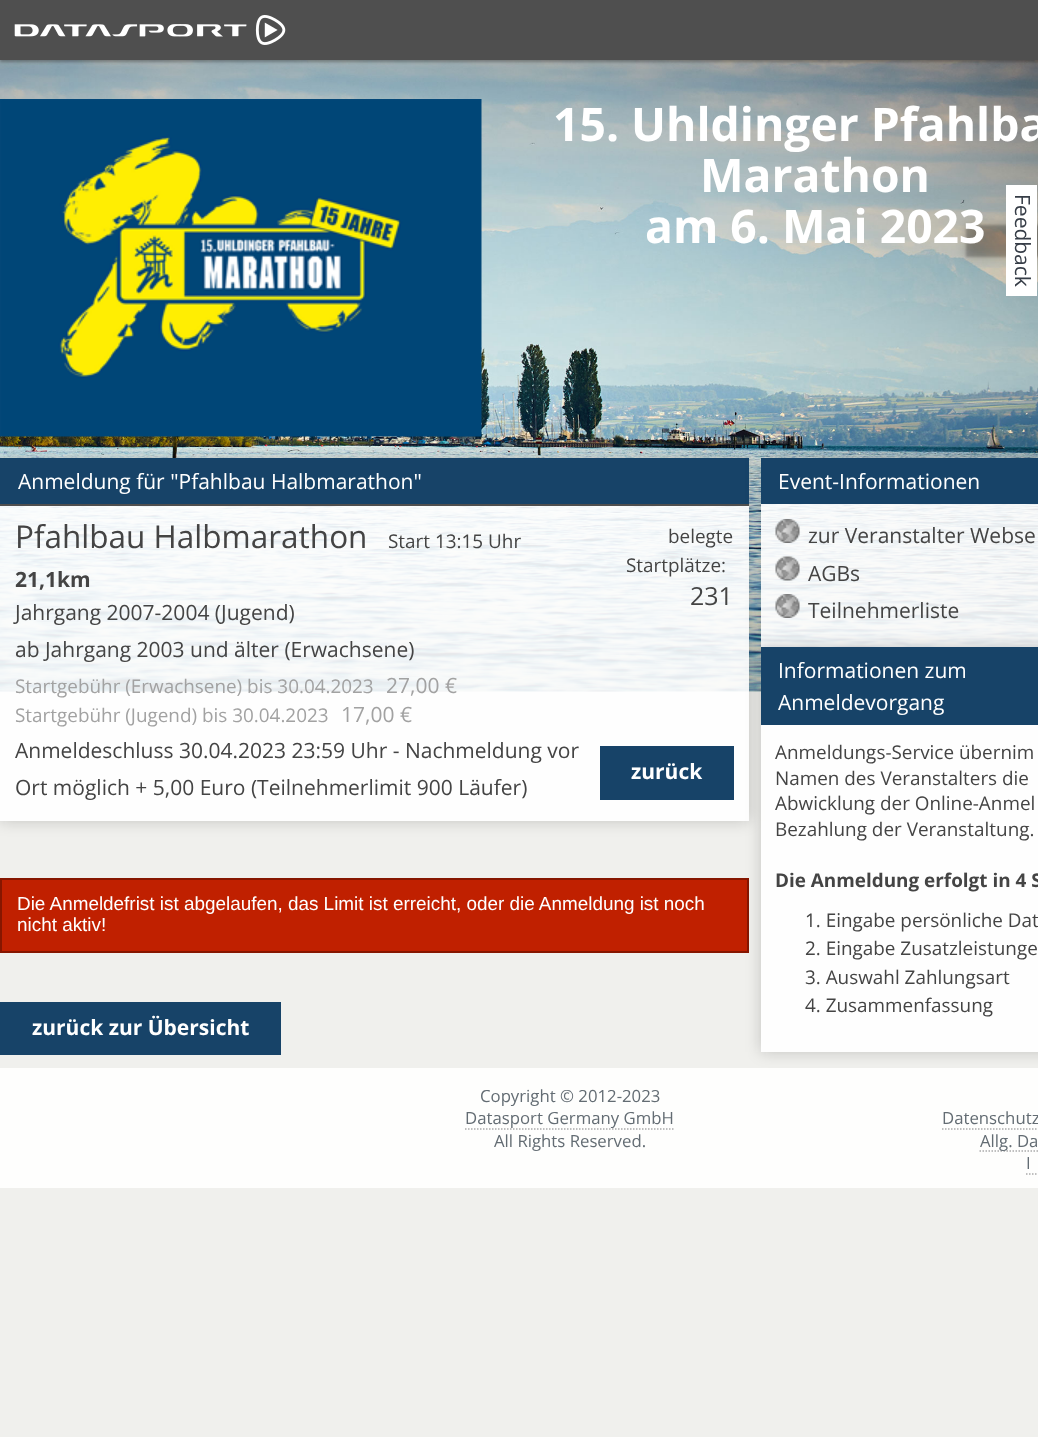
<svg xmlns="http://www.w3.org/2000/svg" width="1038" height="1437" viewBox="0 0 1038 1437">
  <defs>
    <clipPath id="clip1"><path d="M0 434H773V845H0ZM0 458H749V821H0Z" clip-rule="evenodd"/></clipPath>
    <clipPath id="clip2"><path d="M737 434H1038V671H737ZM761 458H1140V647H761Z" clip-rule="evenodd"/></clipPath>
    <clipPath id="clip3"><path d="M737 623H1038V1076H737ZM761 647H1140V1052H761Z" clip-rule="evenodd"/></clipPath>
  </defs>
  <rect width="100%" height="100%" fill="#f0f0ed"/>
  <image x="0" y="60" width="1038" height="632" href="img/1.png"/>
  <path d="M0 2h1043v60H0z" fill="#0000004d" filter="blur(1.5px)"/>
  <path d="M0 0h1038v60H0z" fill="#4f4f4f"/>
  <image x="14" y="15" width="272" height="30" href="img/2.png"/>
  <image x="0" y="99" width="482" height="338" href="img/3.png"/>
  <g clip-path="url(#clip1)">
    <path d="M0 458h749v363H0z" fill="#0a0a0a33" filter="blur(7.5px)"/>
  </g>
  <path d="M0 506h749v315H0z" fill="#ffffffe6"/>
  <path d="M0 458h749v46H0z" fill="#174368"/>
  <path d="M0 504h749v2H0z" fill="#4f4f4f"/>
  <path d="M600 798V800H734V747V798Z" fill="#174368"/>
  <path d="M600 746h134v52H600z" fill="#174368"/>
  <path d="M1 879h747v73H1z" fill="#c02000" stroke="#861600" stroke-width="2"/>
  <path d="M0 1053V1055H281V1004H280V1053Z" fill="#174368"/>
  <path d="M0 1002h281v51H0z" fill="#174368"/>
  <g clip-path="url(#clip2)">
    <path d="M761 458h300v189H761z" fill="#0a0a0a33" filter="blur(7.5px)"/>
  </g>
  <path d="M761 504h277v143H761z" fill="#ffffffe6"/>
  <path d="M761 458h277v46H761z" fill="#174368"/>
  <image x="775" y="519" width="25" height="24" href="img/4.png"/>
  <image x="775" y="556" width="25" height="25" href="img/5.png"/>
  <image x="775" y="594" width="25" height="24" href="img/6.png"/>
  <path d="M0 1068h1038v120H0z" fill="#fefefd"/>
  <g clip-path="url(#clip3)">
    <path d="M761 647h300v405H761z" fill="#0a0a0a33" filter="blur(7.5px)"/>
  </g>
  <path d="M761 725h277v327H761z" fill="#ffffffe6"/>
  <path d="M761 647h277v78H761z" fill="#174368"/>
  <path d="M966 225h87v32H966z" fill="#00000033" filter="blur(5px)"/>
  <path d="M966 225h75v32H966z" fill="#00000033" filter="blur(1px)"/>
  <path d="M1006 185h31v111H1006z" fill="#fff"/>
  <path d="M465 1129H675" fill="none" stroke="#aaa" stroke-width="1.5" stroke-dasharray="1.5 1.5"/>
  <path d="M942 1129H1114.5" fill="none" stroke="#aaa" stroke-width="1.5" stroke-dasharray="1.5 1.5"/>
  <path d="M979.5 1151H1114.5" fill="none" stroke="#aaa" stroke-width="1.5" stroke-dasharray="1.5 1.5"/>
  <path d="M1026 1174H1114.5" fill="none" stroke="#aaa" stroke-width="1.5" stroke-dasharray="1.5 1.5"/>
  <g font-family="Open Sans" font-size="46.25" font-weight="bold" fill="#fff">
    <text x="553" y="141">15. Uhldinger Pfahlba</text>
    <text x="700" y="192">Marathon</text>
    <text x="645" y="243">am 6. Mai 2023</text>
  </g>
  <text x="18" y="489" font-family="Open Sans" font-size="21" fill="#fff">Anmeldung für "Pfahlbau Halbmarathon"</text>
  <text x="15" y="548" font-family="Open Sans" font-size="31.5" fill="#444">Pfahlbau Halbmarathon</text>
  <text x="388" y="548" font-family="Open Sans" font-size="18.9" fill="#444">Start 13:15 Uhr</text>
  <text x="15" y="587" font-family="Open Sans" font-size="21" font-weight="bold" fill="#444">21,1km</text>
  <g font-family="Open Sans" font-size="21" fill="#444">
    <text x="15" y="620">Jahrgang 2007-2004 (Jugend)</text>
    <text x="15" y="657">ab Jahrgang 2003 und älter (Erwachsene)</text>
  </g>
  <text x="15" y="693" font-family="Open Sans" font-size="18.9" fill="#a2a2a2">Startgebühr (Erwachsene) bis 30.04.2023</text>
  <text x="386" y="693" font-family="Open Sans" font-size="21" fill="#a2a2a2">27,00 €</text>
  <text x="15" y="722" font-family="Open Sans" font-size="18.9" fill="#a2a2a2">Startgebühr (Jugend) bis 30.04.2023</text>
  <text x="341" y="722" font-family="Open Sans" font-size="21" fill="#a2a2a2">17,00 €</text>
  <g font-family="Open Sans" font-size="21" fill="#444">
    <text x="15" y="758">Anmeldeschluss 30.04.2023 23:59 Uhr - Nachmeldung vor</text>
    <text x="15" y="795">Ort möglich + 5,00 Euro (Teilnehmerlimit 900 Läufer)</text>
  </g>
  <g font-family="Open Sans" font-size="18.9" fill="#444">
    <text x="668" y="543">belegte</text>
    <text x="626" y="572">Startplätze:</text>
  </g>
  <text x="690" y="605" font-family="Open Sans" font-size="25" fill="#444">231</text>
  <text x="631" y="779" font-family="Open Sans" font-size="21" font-weight="bold" fill="#fff">zurück</text>
  <g font-family="Liberation Sans" font-size="18.9" fill="#fff">
    <text x="17" y="910">Die Anmeldefrist ist abgelaufen, das Limit ist erreicht, oder die Anmeldung ist noch</text>
    <text x="17" y="931">nicht aktiv!</text>
  </g>
  <text x="32" y="1035" font-family="Open Sans" font-size="21" font-weight="bold" fill="#fff">zurück zur Übersicht</text>
  <text x="778" y="489" font-family="Open Sans" font-size="21" fill="#fff">Event-Informationen</text>
  <g font-family="Open Sans" font-size="21" fill="#444">
    <text x="808" y="543">zur Veranstalter Webse</text>
    <text x="808" y="581">AGBs</text>
    <text x="808" y="618">Teilnehmerliste</text>
  </g>
  <g font-family="Open Sans" font-size="21" fill="#fff">
    <text x="778" y="678">Informationen zum</text>
    <text x="778" y="710">Anmeldevorgang</text>
  </g>
  <g font-family="Open Sans" font-size="18.9" fill="#444">
    <text x="775" y="759">Anmeldungs-Service übernim</text>
    <text x="775" y="785">Namen des Veranstalters die</text>
    <text x="775" y="810">Abwicklung der Online-Anmel</text>
    <text x="775" y="836">Bezahlung der Veranstaltung.</text>
  </g>
  <text x="775" y="887" font-family="Open Sans" font-size="18.9" font-weight="bold" fill="#444">Die Anmeldung erfolgt in 4 S</text>
  <g font-family="Open Sans" font-size="18.9" fill="#444">
    <text x="805" y="927">1. Eingabe persönliche Dat</text>
    <text x="805" y="955">2. Eingabe Zusatzleistunge</text>
    <text x="805" y="984">3. Auswahl Zahlungsart</text>
    <text x="805" y="1012">4. Zusammenfassung</text>
  </g>
  <text x="1015" y="194" transform="rotate(90 1015 194)" font-family="Open Sans" font-size="21" fill="#363d47">Feedback</text>
  <g font-family="Open Sans" font-size="16.75" fill="#636c73">
    <text x="480" y="1102">Copyright © 2012-2023</text>
    <text x="465" y="1124">Datasport Germany GmbH</text>
    <text x="494" y="1147">All Rights Reserved.</text>
    <text x="942" y="1124">Datenschutz</text>
    <text x="980" y="1147">Allg. Da</text>
    <text x="1026" y="1169">I</text>
  </g>
</svg>
